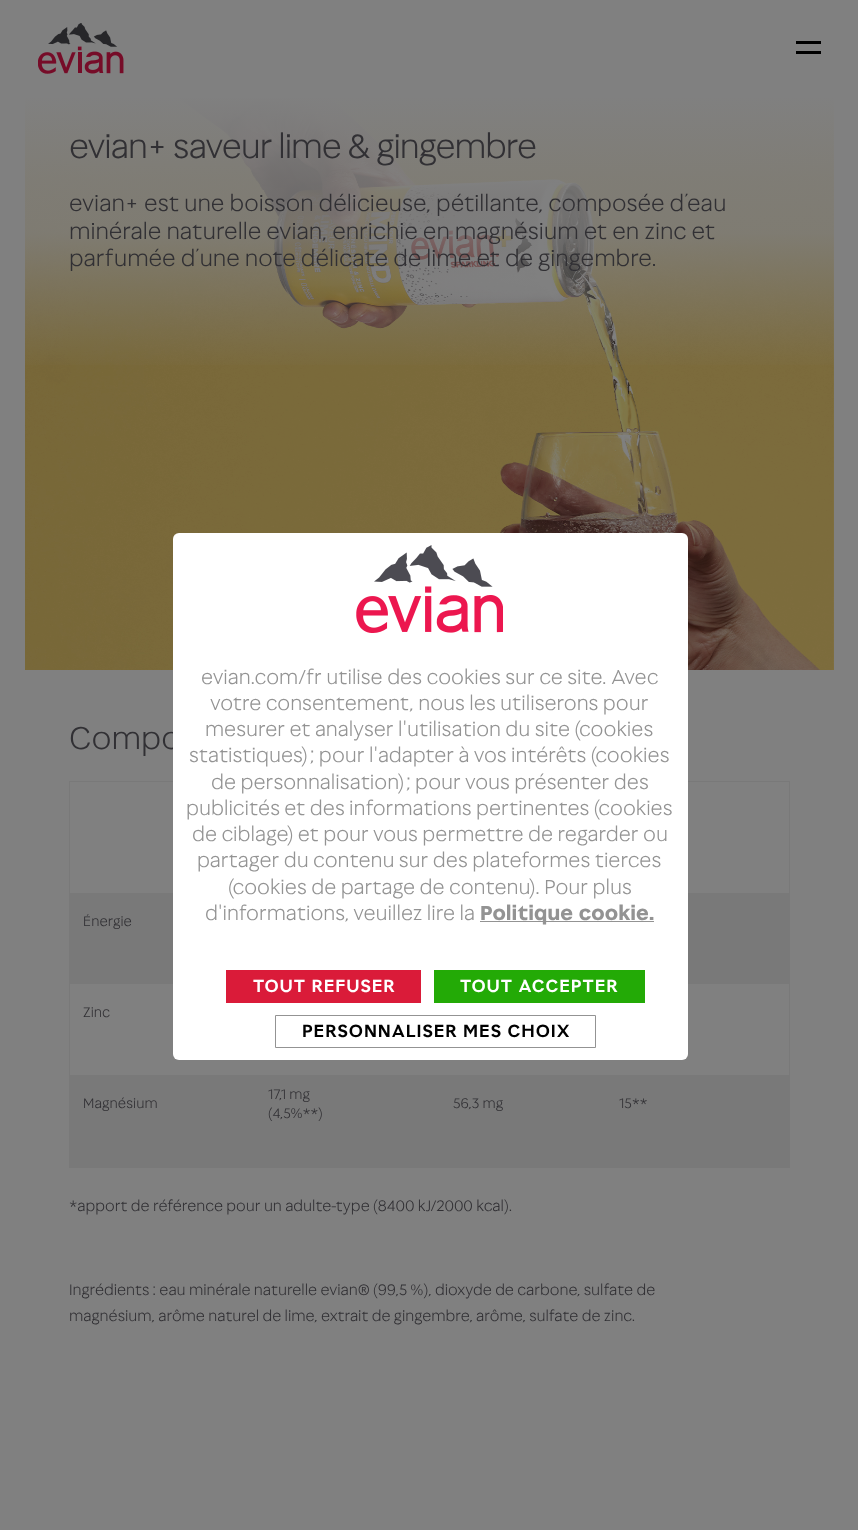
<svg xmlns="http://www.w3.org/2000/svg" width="858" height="1530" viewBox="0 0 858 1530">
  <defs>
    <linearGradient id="g1" gradientUnits="userSpaceOnUse" x1="429" y1="95" x2="429" y2="371"><stop offset="0" stop-color="#808080"/><stop offset="0.3" stop-color="#808080" stop-opacity="0.85"/><stop offset="0.5" stop-color="#808080" stop-opacity="0.8"/><stop offset="1" stop-color="#808080" stop-opacity="0"/></linearGradient>
  </defs>
  <rect width="100%" height="100%" fill="#808080"/>
  <image x="38" y="23" width="86" height="51" href="img/1.png"/>
  <path d="M796 41h25v3H796z" fill="#000"/>
  <path d="M796 51h25v3H796z" fill="#000"/>
  <image x="25" y="98" width="809" height="572" href="img/2.png"/>
  <path d="M25 98h809v267H25z" fill="url(#g1)"/>
  <path d="M69 781h721v1H69z" fill="#797979"/>
  <path d="M789 781h1v387H789z" fill="#797979"/>
  <path d="M69 781h1v387H69z" fill="#797979"/>
  <path d="M70 893h719v91H70z" fill="#797979"/>
  <path d="M70 1075h719v93H70z" fill="#797979"/>
  <text x="69" y="158" font-family="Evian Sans" font-size="33.25" font-weight="300" letter-spacing="-0.95" fill="#313034">evian+ saveur lime &amp; gingembre</text>
  <g font-family="Evian Sans" font-size="22.5" font-weight="300" fill="#313034">
    <text x="69" y="211">evian+ est une boisson délicieuse, pétillante, composée d’eau</text>
    <text x="69" y="239">minérale naturelle evian, enrichie en magnésium et en zinc et</text>
    <text x="69" y="266">parfumée d’une note délicate de lime et de gingembre.</text>
  </g>
  <text x="69" y="749" font-family="Evian Sans" font-size="31" font-weight="300" fill="#313034">Compo</text>
  <g font-family="Evian Sans" font-size="13.75" font-weight="300" letter-spacing="0.1" fill="#313034">
    <text x="83" y="926">Énergie</text>
    <text x="83" y="1017">Zinc</text>
    <text x="83" y="1108">Magnésium</text>
    <text x="268" y="1099">17,1 mg</text>
    <text x="268" y="1118">(4,5%**)</text>
    <text x="453" y="1108">56,3 mg</text>
    <text x="619" y="1108">15**</text>
  </g>
  <g font-family="Evian Sans" font-size="15" font-weight="300" fill="#313034">
    <text x="69" y="1211">*apport de référence pour un adulte-type (8400 kJ/2000 kcal).</text>
    <text x="69" y="1295">Ingrédients : eau minérale naturelle evian® (99,5 %), dioxyde de carbone, sulfate de</text>
    <text x="69" y="1321">magnésium, arôme naturel de lime, extrait de gingembre, arôme, sulfate de zinc.</text>
  </g>
  <rect x="173" y="533" width="515" height="527" rx="6" fill="#fff"/>
  <image x="356" y="545" width="147" height="88" href="img/3.png"/>
  <g font-family="Evian Sans" font-size="20" font-weight="300" fill="#939393">
    <text x="201" y="684">evian.com/fr utilise des cookies sur ce site. Avec</text>
    <text x="210" y="710">votre consentement, nous les utiliserons pour</text>
    <text x="205" y="736">mesurer et analyser l'utilisation du site (cookies</text>
    <text x="189" y="762">statistiques) ; pour l'adapter à vos intérêts (cookies</text>
    <text x="211" y="789">de personnalisation) ; pour vous présenter des</text>
    <text x="186" y="815">publicités et des informations pertinentes (cookies</text>
    <text x="192" y="841">de ciblage) et pour vous permettre de regarder ou</text>
    <text x="197" y="867">partager du contenu sur des plateformes tierces</text>
    <text x="228" y="894">(cookies de partage de contenu). Pour plus</text>
    <text x="205" y="920">d'informations, veuillez lire la</text>
  </g>
  <path d="M480 921h174v1H480z" fill="#939393"/>
  <text x="480" y="920" font-family="Evian Sans" font-size="20" font-weight="bold" fill="#939393">Politique cookie.</text>
  <path d="M226 970h195v33H226z" fill="#da1b39"/>
  <text x="253" y="992" font-family="Evian Sans" font-size="17.5" font-weight="600" letter-spacing="0.9" fill="#fff">TOUT REFUSER</text>
  <path d="M434 970h211v33H434z" fill="#23aa06"/>
  <text x="460" y="992" font-family="Evian Sans" font-size="17.5" font-weight="600" letter-spacing="0.9" fill="#fff">TOUT ACCEPTER</text>
  <path d="M275.5 1015.5h320v32H275.5z" fill="none" stroke="#939393"/>
  <text x="302" y="1037" font-family="Evian Sans" font-size="17.5" font-weight="600" letter-spacing="0.9" fill="#000">PERSONNALISER MES CHOIX</text>
</svg>
